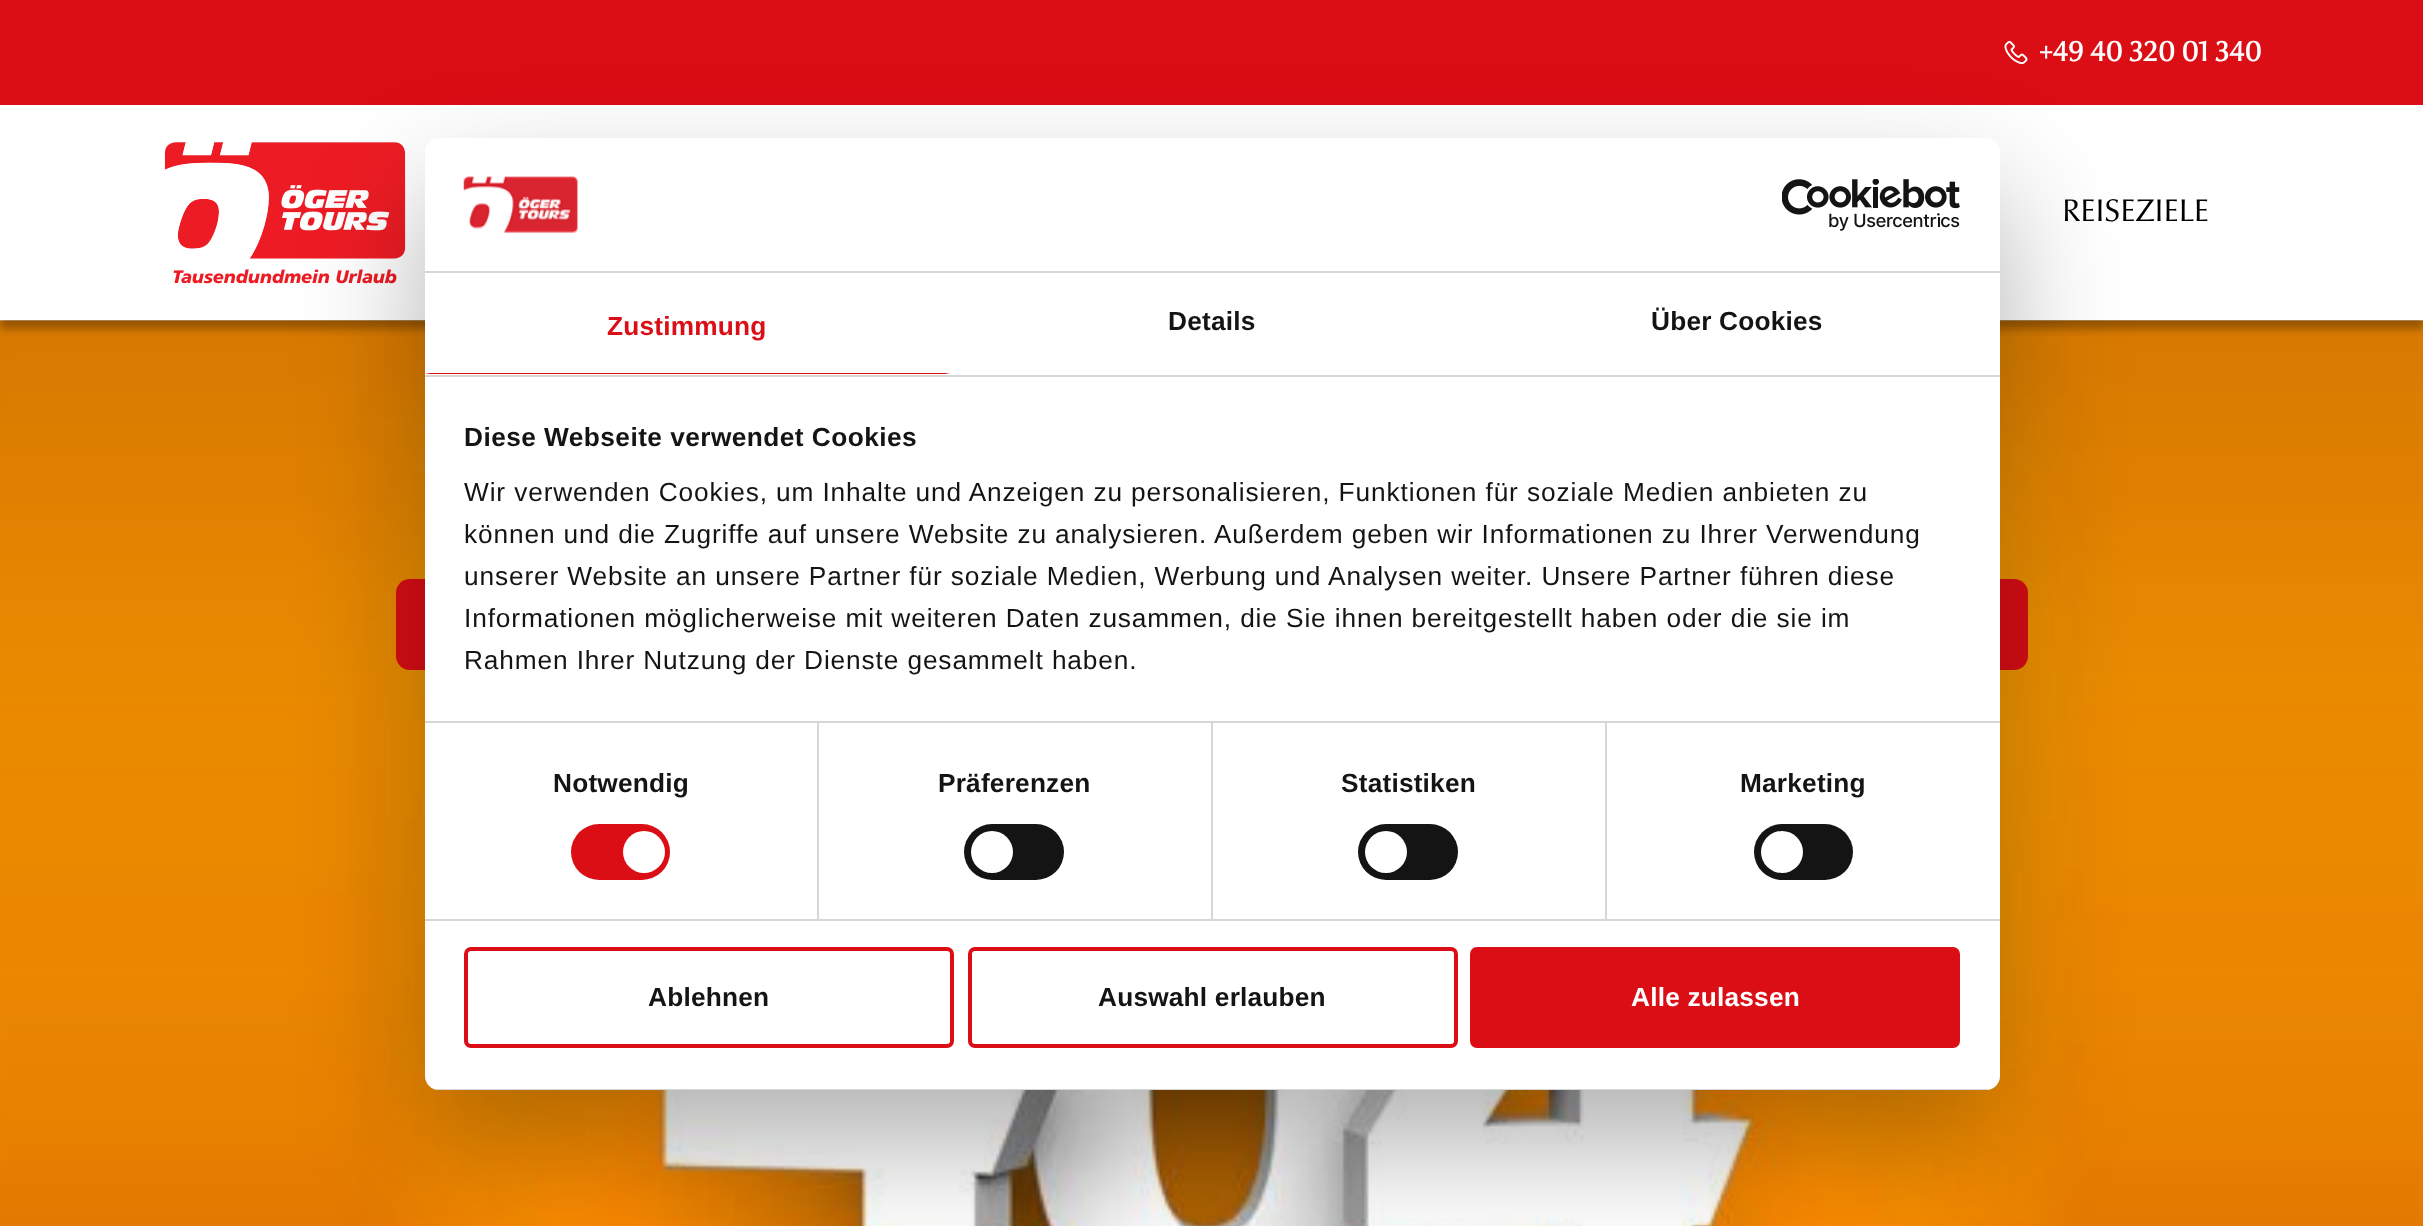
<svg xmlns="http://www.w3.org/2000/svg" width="2423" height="1226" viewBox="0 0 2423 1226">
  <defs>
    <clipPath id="clip1"><path d="M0 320h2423v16H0z"/></clipPath>
    <clipPath id="clip2"><rect x="425" y="138" width="1575" height="952" rx="14"/></clipPath>
  </defs>
  <rect width="100%" height="100%" fill="#fff"/>
  <path d="M0 0h2423v105H0z" fill="#db0d15"/>
  <image x="2004" y="40" width="24" height="25" href="img/1.png"/>
  <image x="0" y="320" width="2423" height="906" href="img/3.png"/>
  <g clip-path="url(#clip1)">
    <path d="M0 114h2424v215H0z" fill="#0000004d" filter="blur(4.5px)"/>
  </g>
  <image x="164" y="142" width="242" height="142" href="img/2.png"/>
  <rect x="396" y="579" width="1632" height="91" rx="14" fill="#db0d15"/>
  <rect x="425" y="194" width="1575" height="952" rx="14" fill="#0000004d" filter="blur(59.5px)"/>
  <rect x="425" y="138" width="1575" height="952" rx="14" fill="#fff"/>
  <path d="M425 271h1575v2H425z" fill="#d6d6d6"/>
  <image x="463" y="176" width="115" height="57" href="img/4.png"/>
  <image x="1782" y="179" width="178" height="52" href="img/5.png"/>
  <path d="M425 375h1575v2H425z" fill="#d6d6d6"/>
  <path d="M950 374H425L430 373H945Z" fill="#db0d15"/>
  <path d="M425 721h1575v2H425z" fill="#d6d6d6"/>
  <path d="M425 919h1575v2H425z" fill="#d6d6d6"/>
  <path d="M817 723h2v196H817z" fill="#d6d6d6"/>
  <rect x="571" y="824" width="99" height="56" rx="28" fill="#db0d15"/>
  <circle cx="644" cy="852" r="21" fill="#fff"/>
  <path d="M1211 723h2v196H1211z" fill="#d6d6d6"/>
  <rect x="964" y="824" width="100" height="56" rx="28" fill="#141414"/>
  <circle cx="992" cy="852" r="21" fill="#fff"/>
  <path d="M1605 723h2v196H1605z" fill="#d6d6d6"/>
  <rect x="1358" y="824" width="100" height="56" rx="28" fill="#141414"/>
  <circle cx="1386" cy="852" r="21" fill="#fff"/>
  <rect x="1754" y="824" width="99" height="56" rx="28" fill="#141414"/>
  <circle cx="1782" cy="852" r="21" fill="#fff"/>
  <g clip-path="url(#clip2)">
    <path d="M434 1089h1557v1H434z" fill="#d6d6d6"/>
  </g>
  <rect x="466" y="949" width="486" height="97" rx="5" fill="none" stroke="#db0d15" stroke-width="4"/>
  <rect x="970" y="949" width="486" height="97" rx="5" fill="none" stroke="#db0d15" stroke-width="4"/>
  <rect x="1472" y="949" width="486" height="97" rx="5" fill="#db0d15" stroke="#db0d15" stroke-width="4"/>
  <text x="2039" y="61" font-family="'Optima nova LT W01'" font-size="28" font-weight="bold" fill="#fff">+49 40 320 01 340</text>
  <text x="2062" y="221" font-family="'Optima nova LT W01'" font-size="31.5" fill="#000">REISEZIELE</text>
  <text x="607" y="335" font-family="Liberation Sans" font-size="26.25" font-weight="bold" letter-spacing="0.2" fill="#db0d15">Zustimmung</text>
  <g font-family="Liberation Sans" font-size="26.25" font-weight="bold" letter-spacing="0.2" fill="#141414">
    <text x="1168" y="330">Details</text>
    <text x="1651" y="330">Über Cookies</text>
  </g>
  <text x="464" y="446" font-family="Liberation Sans" font-size="26.25" font-weight="bold" letter-spacing="0.45" fill="#141414">Diese Webseite verwendet Cookies</text>
  <g font-family="Liberation Sans" font-size="26.25" letter-spacing="0.88" fill="#141414">
    <text x="464" y="501">Wir verwenden Cookies, um Inhalte und Anzeigen zu personalisieren, Funktionen für soziale Medien anbieten zu</text>
    <text x="464" y="543">können und die Zugriffe auf unsere Website zu analysieren. Außerdem geben wir Informationen zu Ihrer Verwendung</text>
    <text x="464" y="585">unserer Website an unsere Partner für soziale Medien, Werbung und Analysen weiter. Unsere Partner führen diese</text>
    <text x="464" y="627">Informationen möglicherweise mit weiteren Daten zusammen, die Sie ihnen bereitgestellt haben oder die sie im</text>
    <text x="464" y="669">Rahmen Ihrer Nutzung der Dienste gesammelt haben.</text>
  </g>
  <g font-family="Liberation Sans" font-size="26.25" font-weight="bold" letter-spacing="0.2" fill="#141414">
    <text x="553" y="792">Notwendig</text>
    <text x="938" y="792">Präferenzen</text>
    <text x="1341" y="792">Statistiken</text>
    <text x="1740" y="792">Marketing</text>
    <text x="648" y="1006">Ablehnen</text>
    <text x="1098" y="1006">Auswahl erlauben</text>
  </g>
  <text x="1631" y="1006" font-family="Liberation Sans" font-size="26.25" font-weight="bold" letter-spacing="0.2" fill="#fff">Alle zulassen</text>
</svg>
